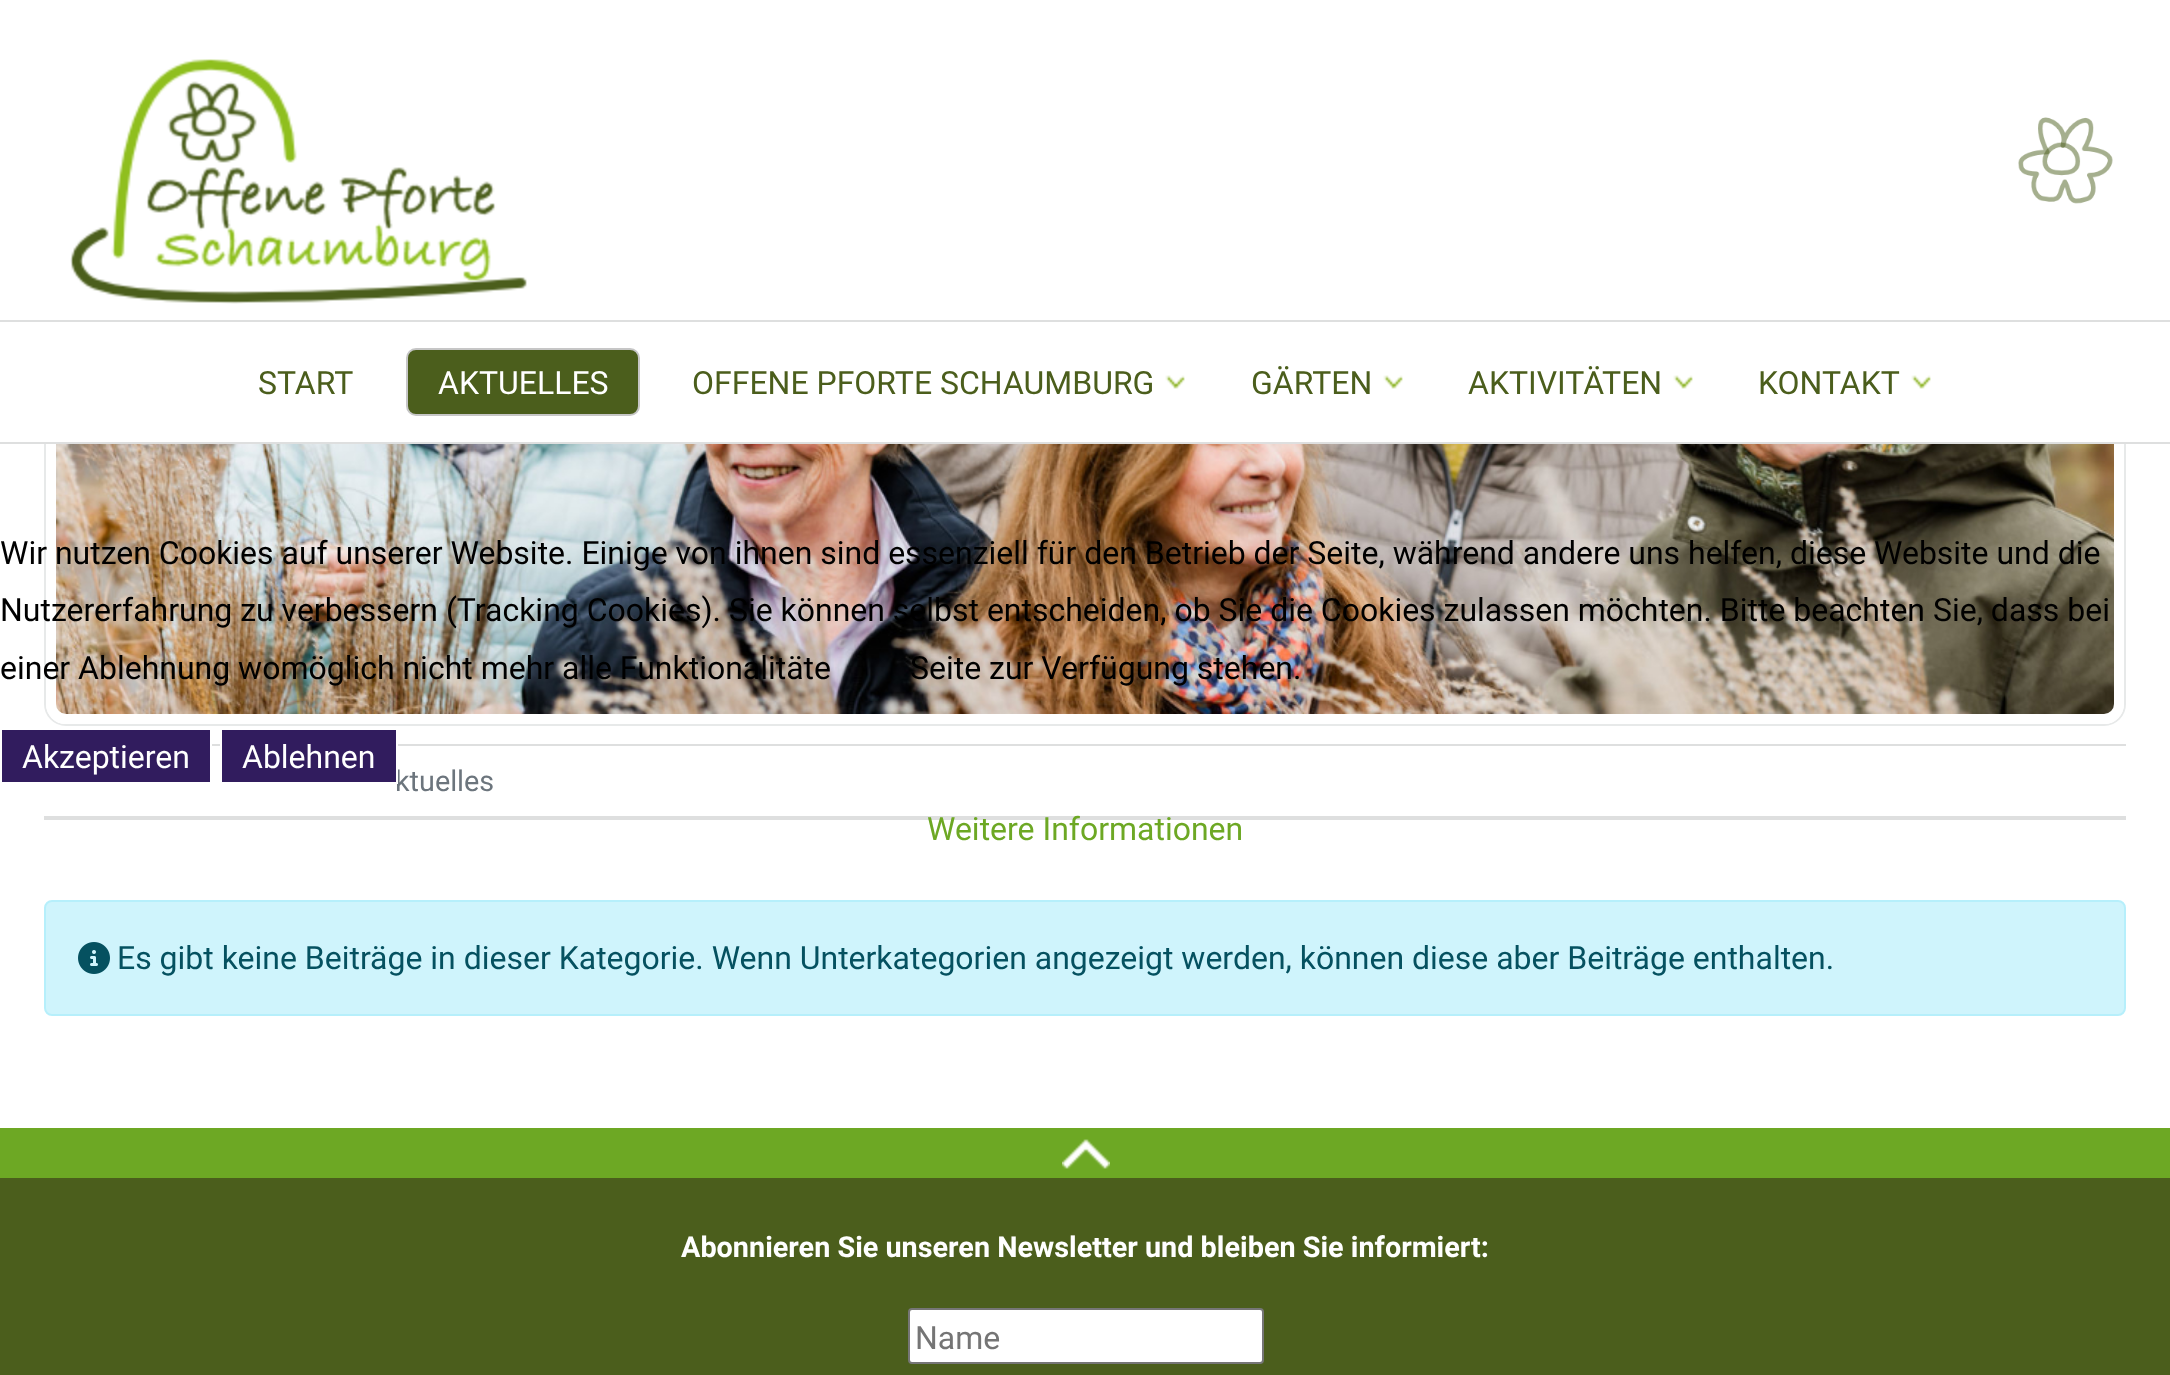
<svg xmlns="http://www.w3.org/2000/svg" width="2170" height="1375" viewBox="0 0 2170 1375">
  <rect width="100%" height="100%" fill="#fff"/>
  <rect x="45" y="67" width="2080" height="658" rx="21" fill="none" stroke="#e7e9e9" stroke-width="2"/>
  <rect x="51" y="73" width="2068" height="646" rx="15" fill="none" stroke="#fff" stroke-width="10"/>
  <path d="M44 66h2082v254H44z" fill="#fff"/>
  <image x="70" y="59" width="457" height="245" href="img/1.png"/>
  <image x="2018" y="117" width="95" height="87" href="img/2.png"/>
  <path d="M44 322h2082v120H44z" fill="#fff"/>
  <path d="M0 320h2170v2H0z" fill="#dedfdf"/>
  <path d="M0 442h2170v2H0z" fill="#dedfdf"/>
  <rect x="407" y="349" width="232" height="66" rx="9" fill="#4b5e1c" stroke="#c6c6c6" stroke-width="2"/>
  <image x="1165" y="375" width="20" height="14" href="img/3.png"/>
  <image x="1383" y="375" width="20" height="14" href="img/3.png"/>
  <image x="1673" y="375" width="20" height="14" href="img/3.png"/>
  <image x="1911" y="375" width="20" height="14" href="img/3.png"/>
  <path d="M2 730h208v52H2z" fill="#311c5e"/>
  <image x="56" y="444" width="2058" height="270" href="img/4.png"/>
  <path d="M44 816h2082v4H44z" fill="#dedfdf"/>
  <path d="M212 744h1914v2H212z" fill="#dedfdf"/>
  <rect x="45" y="901" width="2080" height="114" rx="7" fill="#cff4fc" stroke="#b6effb" stroke-width="2"/>
  <image x="78" y="942" width="32" height="32" href="img/5.png"/>
  <path d="M0 1128h2170v50H0z" fill="#6da824"/>
  <image x="1062" y="1139" width="48" height="30" href="img/6.png"/>
  <path d="M0 1178h2170v197H0z" fill="#4b5e1c"/>
  <rect x="909" y="1309" width="354" height="54" rx="3" fill="#fff" stroke="#767676" stroke-width="2"/>
  <text x="258" y="394" font-family="Roboto" font-size="32" fill="#4b5e1c">START</text>
  <text x="438" y="394" font-family="Roboto" font-size="32" fill="#fff">AKTUELLES</text>
  <g font-family="Roboto" font-size="32" fill="#4b5e1c">
    <text x="692" y="394">OFFENE PFORTE SCHAUMBURG</text>
    <text x="1251" y="394">GÄRTEN</text>
    <text x="1468" y="394">AKTIVITÄTEN</text>
    <text x="1758" y="394">KONTAKT</text>
  </g>
  <g font-family="Roboto" font-size="32" fill="#000">
    <text x="0" y="564">Wir nutzen Cookies auf unserer Website. Einige von ihnen sind essenziell für den Betrieb der Seite, während andere uns helfen, diese Website und die</text>
    <text x="0" y="621">Nutzererfahrung zu verbessern (Tracking Cookies). Sie können selbst entscheiden, ob Sie die Cookies zulassen möchten. Bitte beachten Sie, dass bei</text>
    <text x="0" y="679">einer Ablehnung womöglich nicht mehr alle Funktionalitäte</text>
    <text x="910" y="679">Seite zur Verfügung stehen.</text>
  </g>
  <text x="22" y="768" font-family="Roboto" font-size="32" fill="#fff">Akzeptieren</text>
  <text x="927" y="840" font-family="Roboto" font-size="32" fill="#6da824">Weitere Informationen</text>
  <text x="395" y="791" font-family="Roboto" font-size="28.8" fill="#6c757d">ktuelles</text>
  <path d="M221 729h176v54H221z" fill="#311c5e" stroke="#fff" stroke-width="2"/>
  <text x="242" y="768" font-family="Roboto" font-size="32" fill="#fff">Ablehnen</text>
  <text x="117" y="969" font-family="Roboto" font-size="32" fill="#055160">Es gibt keine Beiträge in dieser Kategorie. Wenn Unterkategorien angezeigt werden, können diese aber Beiträge enthalten.</text>
  <text x="681" y="1257" font-family="Roboto" font-size="28.8" font-weight="bold" fill="#fff">Abonnieren Sie unseren Newsletter und bleiben Sie informiert:</text>
  <text x="915" y="1349" font-family="Roboto" font-size="32" fill="#757575">Name</text>
</svg>
